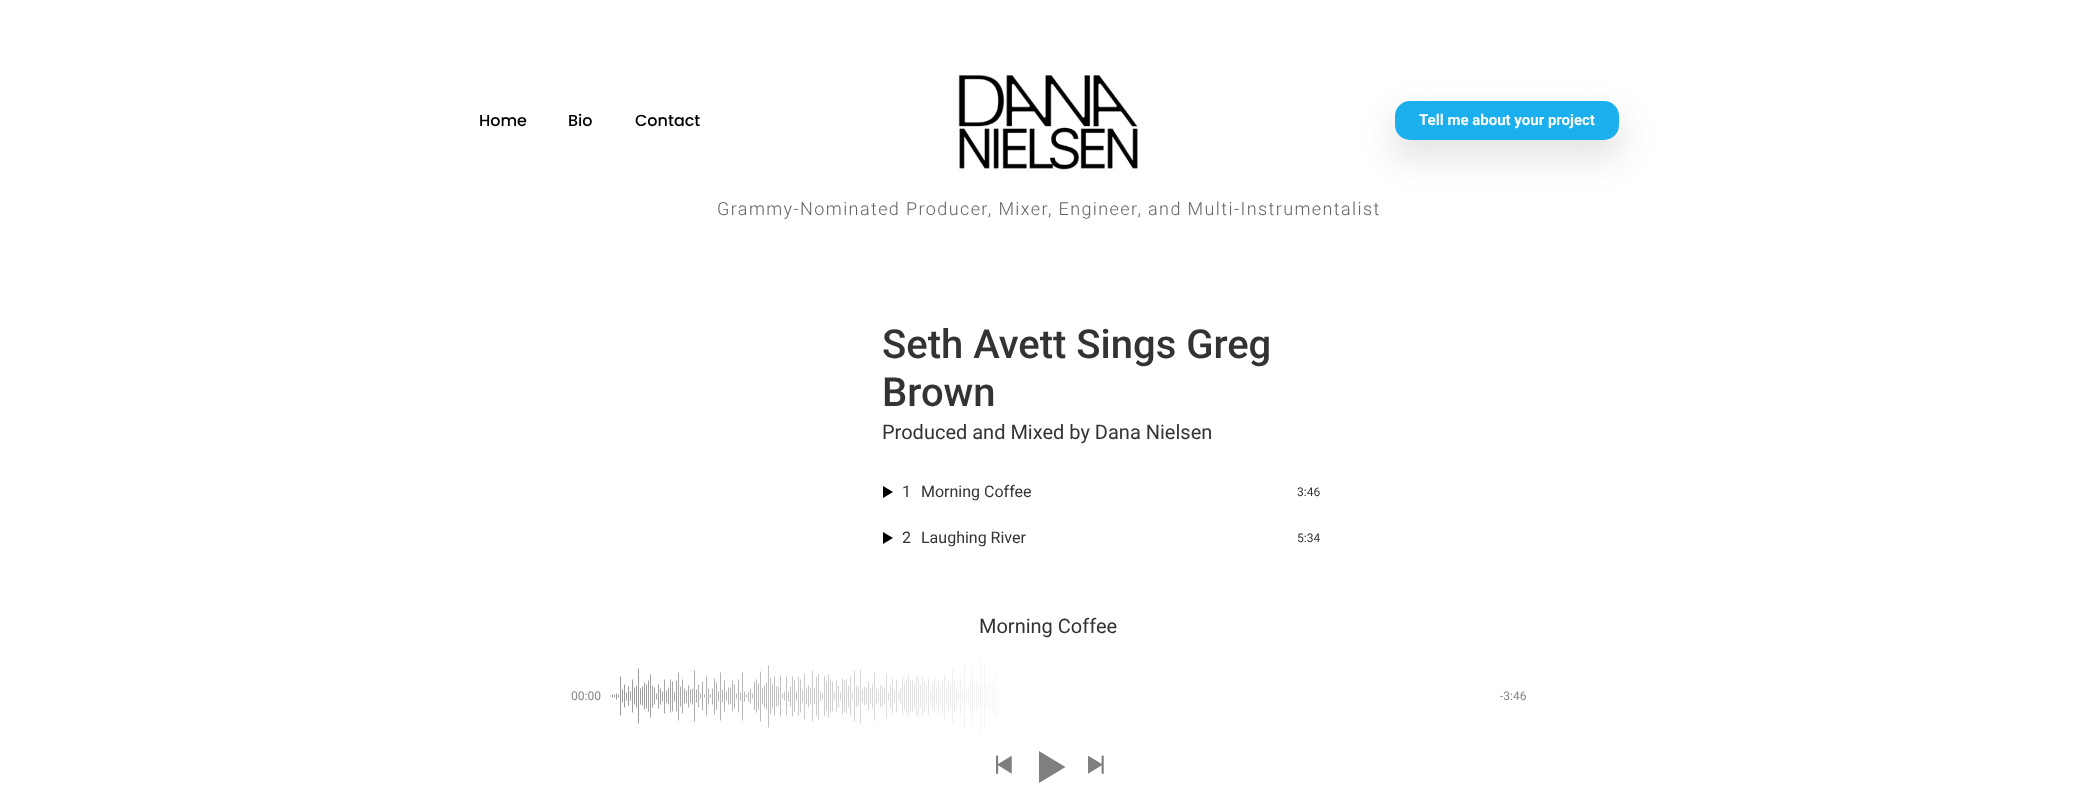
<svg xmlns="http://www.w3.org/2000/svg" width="2097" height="794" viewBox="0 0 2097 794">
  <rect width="100%" height="100%" fill="#fff"/>
  <image x="958" y="75" width="180" height="95" href="img/1.png"/>
  <rect x="1391" y="113" width="232" height="47" rx="19" fill="#51505026" filter="blur(16px)"/>
  <rect x="1395" y="101" width="224" height="39" rx="15" fill="#1bafee"/>
  <path d="M883 486L893 492L883 498Z" fill="#000"/>
  <path d="M883 532L893 538L883 544Z" fill="#000"/>
  <image x="610" y="661" width="391" height="70" href="img/2.png"/>
  <image x="996" y="755" width="16" height="19" href="img/3.png"/>
  <path d="M1039 751L1065.5 767L1039 783Z" fill="#7f7f7f"/>
  <image x="1088" y="755" width="16" height="19" href="img/4.png"/>
  <g font-family="Poppins" font-size="16" font-weight="500" fill="#000">
    <text x="479" y="126">Home</text>
    <text x="568" y="126">Bio</text>
    <text x="635" y="126">Contact</text>
  </g>
  <text x="1419" y="125" font-family="Roboto" font-size="15" font-weight="bold" fill="#fff">Tell me about your project</text>
  <text x="717" y="215" font-family="Roboto" font-size="18" font-weight="300" letter-spacing="1.4" fill="#606363">Grammy-Nominated Producer, Mixer, Engineer, and Multi-Instrumentalist</text>
  <g font-family="Roboto" font-size="40" font-weight="500" fill="#333">
    <text x="882" y="358">Seth Avett Sings Greg</text>
    <text x="882" y="406">Brown</text>
  </g>
  <text x="882" y="439" font-family="Roboto" font-size="20" fill="#333">Produced and Mixed by Dana Nielsen</text>
  <g font-family="Roboto" font-size="16" fill="#333">
    <text x="902" y="497">1</text>
    <text x="921" y="497">Morning Coffee</text>
  </g>
  <text x="1297" y="496" font-family="Roboto" font-size="12" fill="#333">3:46</text>
  <g font-family="Roboto" font-size="16" fill="#333">
    <text x="902" y="543">2</text>
    <text x="921" y="543">Laughing River</text>
  </g>
  <text x="1297" y="542" font-family="Roboto" font-size="12" fill="#333">5:34</text>
  <text x="979" y="633" font-family="Roboto" font-size="20" fill="#333">Morning Coffee</text>
  <g font-family="Roboto" font-size="12" fill="#858585">
    <text x="571" y="700">00:00</text>
    <text x="1500" y="700">-3:46</text>
  </g>
</svg>
